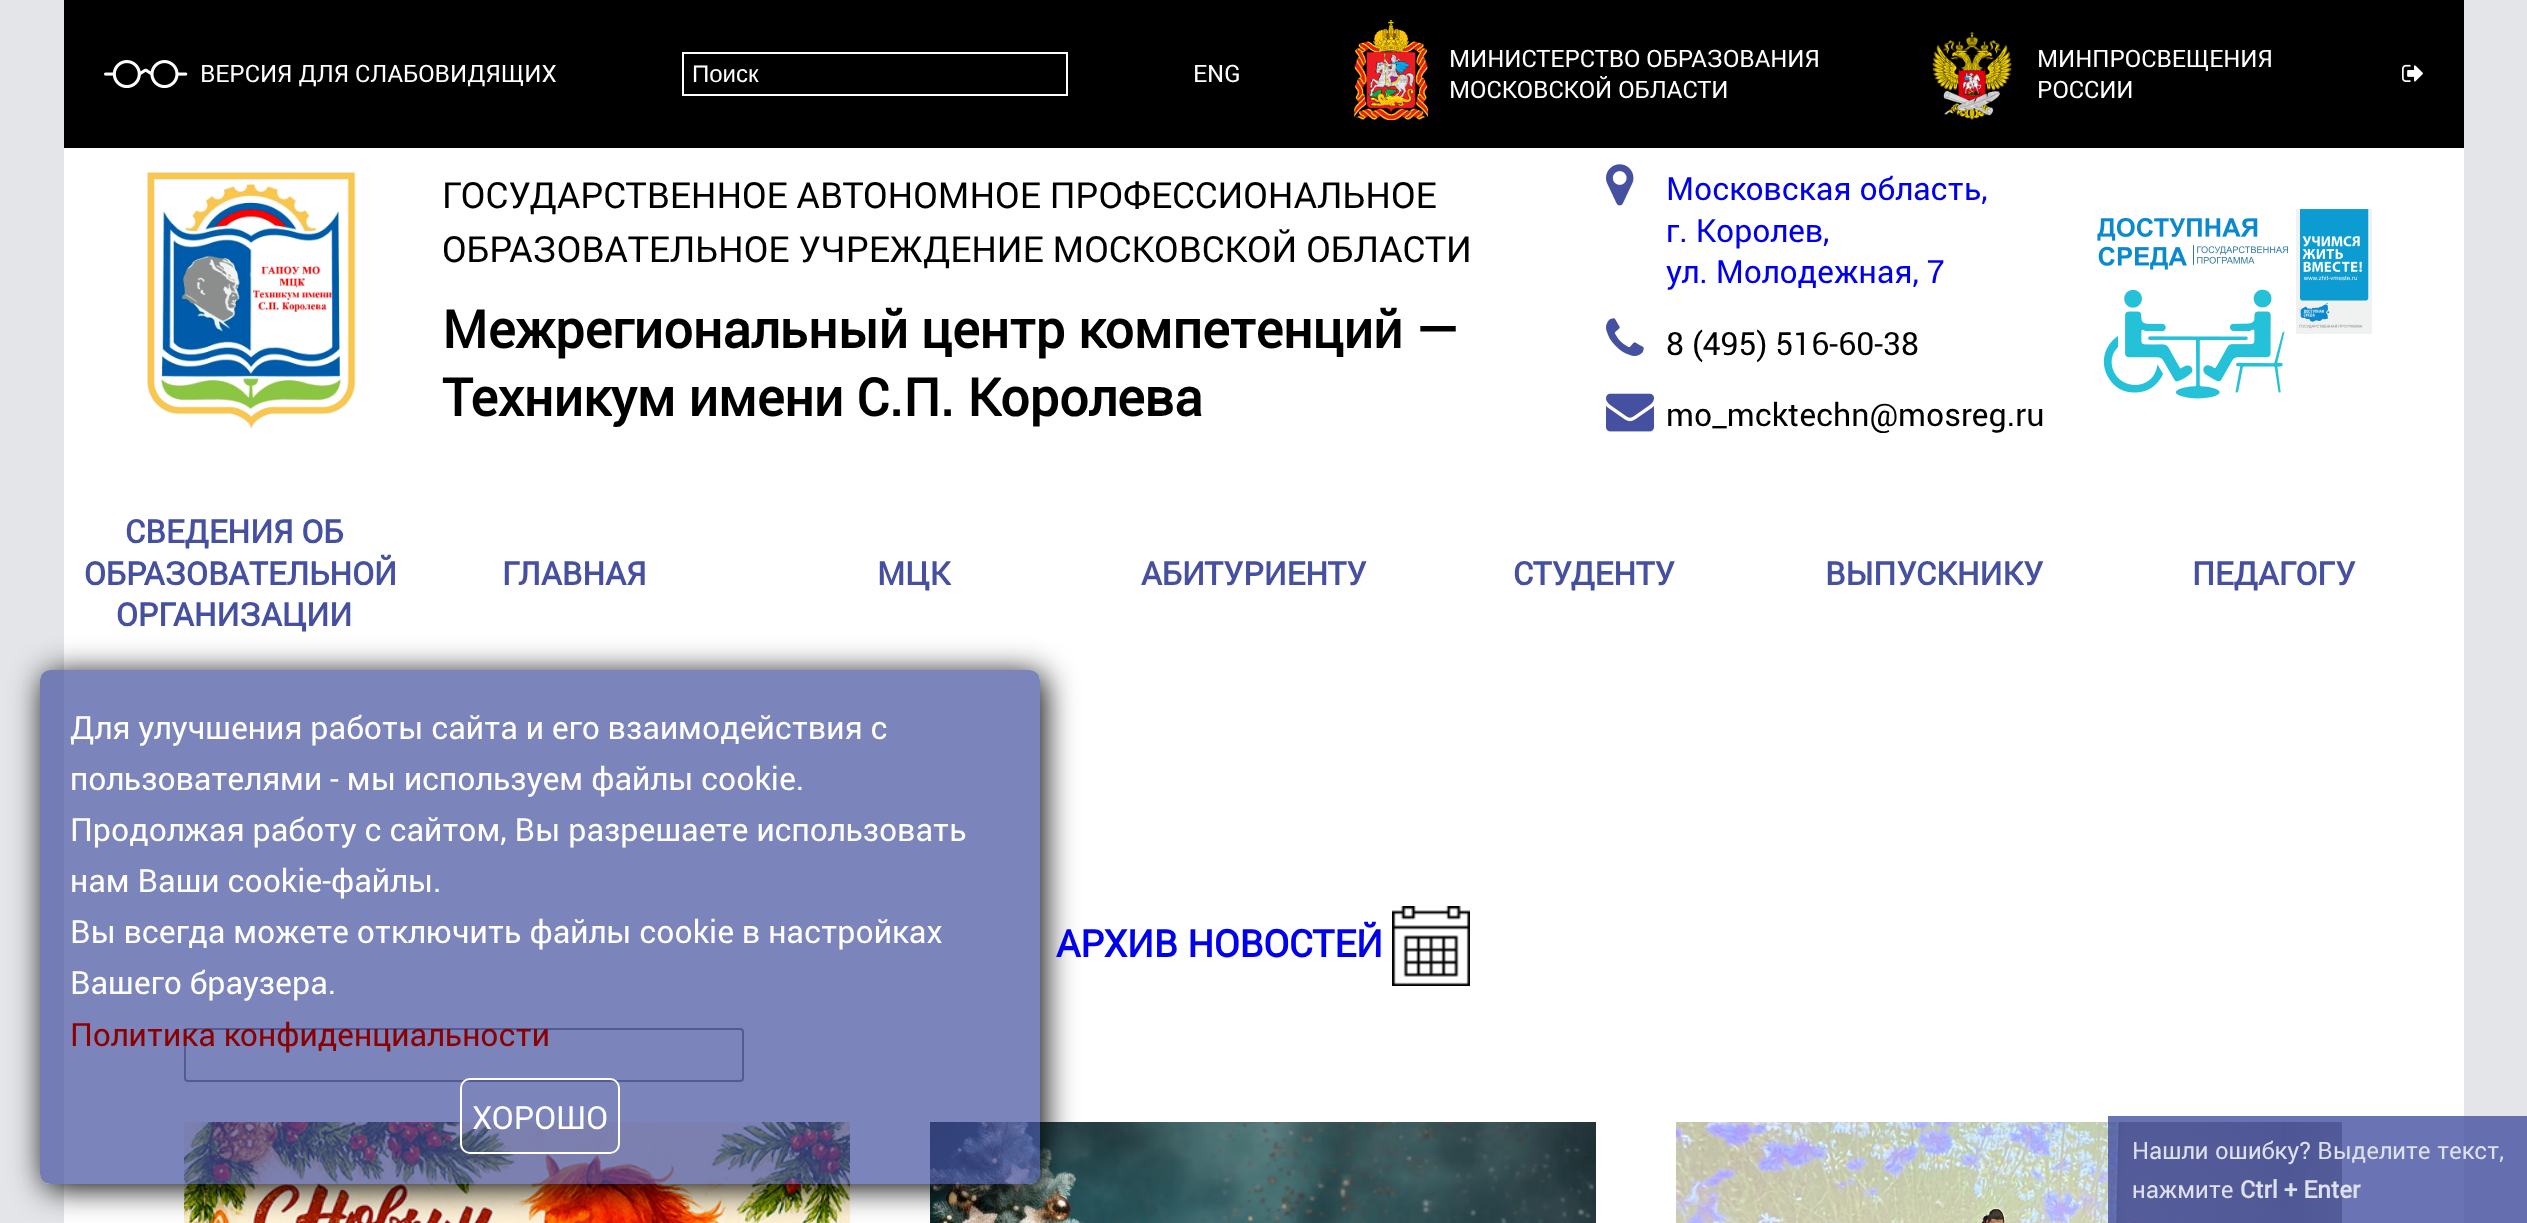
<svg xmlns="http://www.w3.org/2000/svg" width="2527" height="1223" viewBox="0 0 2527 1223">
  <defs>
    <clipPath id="clip1"><path d="M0 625H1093V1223H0ZM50 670H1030C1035.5 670 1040 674.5 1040 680V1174C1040 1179.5 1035.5 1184 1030 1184H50C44.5 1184 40 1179.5 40 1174V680C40 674.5 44.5 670 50 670Z" clip-rule="evenodd"/></clipPath>
  </defs>
  <rect width="100%" height="100%" fill="#e3e5e8"/>
  <path d="M64 148h2400v1075H64z" fill="#fff"/>
  <path d="M64 0h2400v148H64z" fill="#000"/>
  <image x="104" y="60" width="84" height="28" href="img/1.png"/>
  <path d="M683 53h384v42H683z" fill="none" stroke="#fff" stroke-width="2"/>
  <image x="1354" y="20" width="74" height="100" href="img/2.png"/>
  <image x="1932" y="32" width="80" height="88" href="img/3.png"/>
  <image x="2402" y="64" width="21" height="18" href="img/4.png"/>
  <image x="147" y="172" width="209" height="257" href="img/5.png"/>
  <image x="1606" y="164" width="28" height="42" href="img/6.png"/>
  <image x="1606" y="318" width="38" height="38" href="img/7.png"/>
  <image x="1606" y="393" width="48" height="39" href="img/8.png"/>
  <image x="2097" y="209" width="275" height="190" href="img/9.png"/>
  <image x="1392" y="906" width="78" height="80" href="img/10.png"/>
  <rect x="185" y="1029" width="558" height="52" rx="3" fill="none" stroke="#767676" stroke-width="2"/>
  <image x="184" y="1122" width="666" height="101" href="img/11.png"/>
  <image x="930" y="1122" width="666" height="101" href="img/12.png"/>
  <image x="1676" y="1122" width="666" height="101" href="img/13.png"/>
  <path d="M2108 1116h419v107H2108z" fill="#4550a0cc"/>
  <g clip-path="url(#clip1)">
    <rect x="44" y="674" width="1000" height="514" rx="10" fill="#000" filter="blur(16px)"/>
  </g>
  <rect x="40" y="670" width="1000" height="514" rx="10" fill="#4550a0b3"/>
  <rect x="461" y="1079" width="158" height="74" rx="9" fill="none" stroke="#fff" stroke-width="2"/>
  <text x="200" y="82" font-family="Roboto" font-size="24" fill="#fff">ВЕРСИЯ ДЛЯ СЛАБОВИДЯЩИХ</text>
  <text x="692" y="82" font-family="Liberation Sans" font-size="24" fill="#fff">Поиск</text>
  <g font-family="Roboto" font-size="24" fill="#fff">
    <text x="1193" y="82">ENG</text>
    <text x="1449" y="67">МИНИСТЕРСТВО ОБРАЗОВАНИЯ</text>
    <text x="1449" y="98">МОСКОВСКОЙ ОБЛАСТИ</text>
    <text x="2037" y="67">МИНПРОСВЕЩЕНИЯ</text>
    <text x="2037" y="98">РОССИИ</text>
  </g>
  <g font-family="Roboto" font-size="36" fill="#000">
    <text x="442" y="208">ГОСУДАРСТВЕННОЕ АВТОНОМНОЕ ПРОФЕССИОНАЛЬНОЕ</text>
    <text x="442" y="262">ОБРАЗОВАТЕЛЬНОЕ УЧРЕЖДЕНИЕ МОСКОВСКОЙ ОБЛАСТИ</text>
  </g>
  <g font-family="Roboto" font-size="52" font-weight="bold" fill="#000">
    <text x="442" y="348">Межрегиональный центр компетенций —</text>
    <text x="442" y="416">Техникум имени С.П. Королева</text>
  </g>
  <g font-family="Roboto" font-size="32" fill="#00e">
    <text x="1666" y="200">Московская область,</text>
    <text x="1666" y="242">г. Королев,</text>
    <text x="1666" y="283">ул. Молодежная, 7</text>
  </g>
  <g font-family="Roboto" font-size="32" fill="#000">
    <text x="1666" y="355">8 (495) 516-60-38</text>
    <text x="1666" y="426">mo_mcktechn@mosreg.ru</text>
  </g>
  <g font-family="Roboto" font-size="32" font-weight="bold" fill="#4550a0">
    <text x="125" y="543">СВЕДЕНИЯ ОБ</text>
    <text x="84" y="585">ОБРАЗОВАТЕЛЬНОЙ</text>
    <text x="116" y="626">ОРГАНИЗАЦИИ</text>
    <text x="502" y="585">ГЛАВНАЯ</text>
    <text x="877" y="585">МЦК</text>
    <text x="1141" y="585">АБИТУРИЕНТУ</text>
    <text x="1513" y="585">СТУДЕНТУ</text>
    <text x="1825" y="585">ВЫПУСКНИКУ</text>
    <text x="2192" y="585">ПЕДАГОГУ</text>
  </g>
  <text x="1056" y="957" font-family="Roboto" font-size="37.5" font-weight="bold" fill="#00e">АРХИВ НОВОСТЕЙ</text>
  <g font-family="Roboto" font-size="24" fill="#dee0ed">
    <text x="2132" y="1159" word-spacing="0.5">Нашли ошибку? Выделите текст,</text>
    <text x="2132" y="1198">нажмите</text>
  </g>
  <text x="2240" y="1198" font-family="Roboto" font-size="24" font-weight="bold" fill="#dee0ed">Ctrl + Enter</text>
  <g font-family="Roboto" font-size="32" fill="#fff">
    <text x="70" y="739">Для улучшения работы сайта и его взаимодействия с</text>
    <text x="70" y="790">пользователями - мы используем файлы cookie.</text>
    <text x="70" y="841">Продолжая работу с сайтом, Вы разрешаете использовать</text>
    <text x="70" y="892">нам Ваши cookie-файлы.</text>
    <text x="70" y="943">Вы всегда можете отключить файлы cookie в настройках</text>
    <text x="70" y="994">Вашего браузера.</text>
  </g>
  <text x="70" y="1046" font-family="Roboto" font-size="32" fill="#8b0000">Политика конфиденциальности</text>
  <text x="472" y="1129" font-family="Roboto" font-size="32" fill="#fff">ХОРОШО</text>
</svg>
